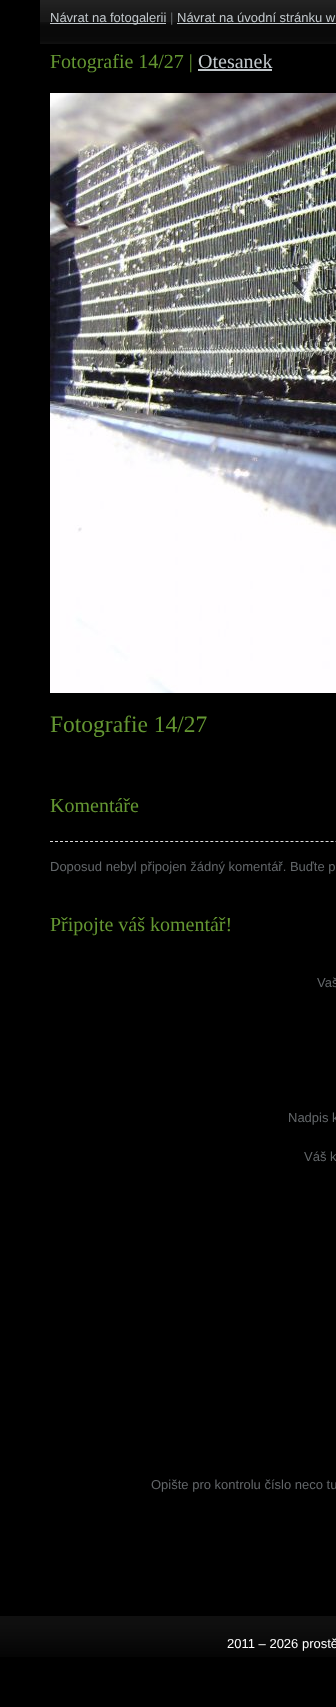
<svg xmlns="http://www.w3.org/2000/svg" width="336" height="1707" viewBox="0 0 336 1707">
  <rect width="100%" height="100%" fill="#000"/>
  <image x="40" y="0" width="296" height="44" href="img/1.png"/>
  <path d="M50 23h116v1H50z" fill="#c2c8cc"/>
  <path d="M177 23h159v1H177z" fill="#c2c8cc"/>
  <path d="M198 69h74v2H198z" fill="#c2c8cc"/>
  <image x="50" y="93" width="286" height="600" href="img/2.png"/>
  <path d="M50 841.5H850" fill="none" stroke="#ddd" stroke-dasharray="3 2.01"/>
  <image x="0" y="1616" width="336" height="41" href="img/3.png"/>
  <text x="50" y="22" font-family="Liberation Sans" font-size="13" fill="#c2c8cc">Návrat na fotogalerii</text>
  <text x="170" y="22" font-family="Liberation Sans" font-size="13" fill="#63676a">|</text>
  <text x="177" y="22" font-family="Liberation Sans" font-size="13" fill="#c2c8cc">Návrat na úvodní stránku w</text>
  <text x="50" y="68" font-family="Liberation Serif" font-size="20" fill="#649632">Fotografie 14/27 |</text>
  <text x="198" y="68" font-family="Liberation Serif" font-size="20" fill="#c2c8cc">Otesanek</text>
  <text x="50" y="732" font-family="Liberation Serif" font-size="23.5" fill="#649632">Fotografie 14/27</text>
  <text x="50" y="812" font-family="Liberation Serif" font-size="20" fill="#649632">Komentáře</text>
  <text x="50" y="871" font-family="Liberation Sans" font-size="13" fill="#63676a">Doposud nebyl připojen žádný komentář. Buďte p</text>
  <text x="50" y="931" font-family="Liberation Serif" font-size="20" fill="#649632">Připojte váš komentář!</text>
  <g font-family="Liberation Sans" font-size="13" fill="#63676a">
    <text x="317" y="987">Vaš</text>
    <text x="288" y="1122">Nadpis k</text>
    <text x="304" y="1161">Váš k</text>
    <text x="151" y="1489">Opište pro kontrolu číslo neco tu</text>
  </g>
  <text x="227" y="1648" font-family="Liberation Sans" font-size="13" fill="#fff">2011 – 2026 prostě</text>
</svg>
